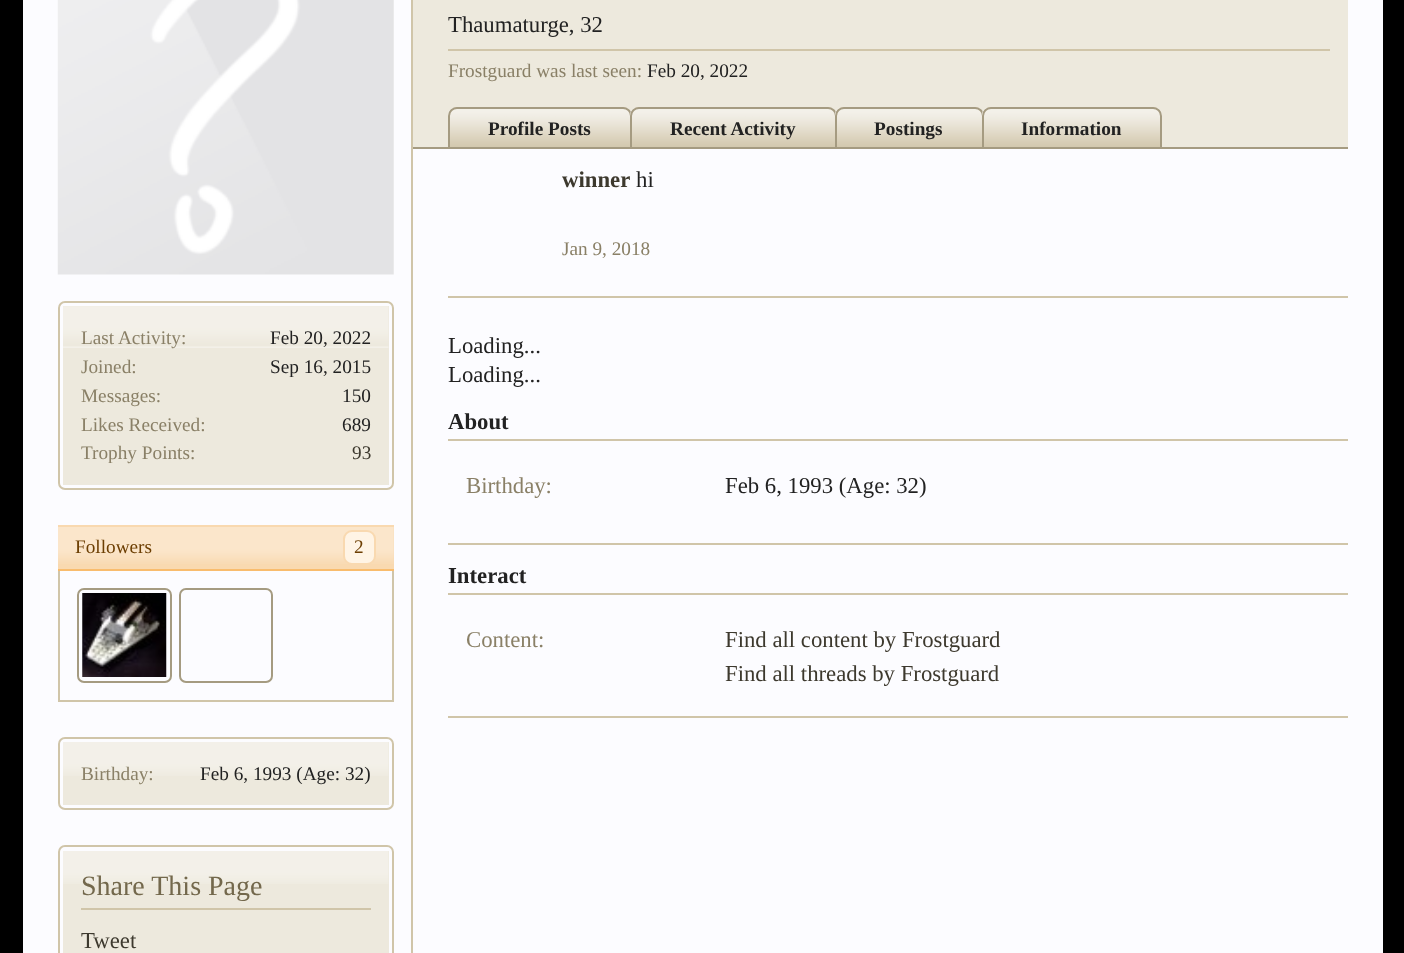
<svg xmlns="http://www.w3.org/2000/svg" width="1404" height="953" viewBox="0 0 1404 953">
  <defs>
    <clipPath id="clip1"><path d="M81 439h290v28H81z"/></clipPath>
  </defs>
  <rect width="100%" height="100%" fill="#000"/>
  <path d="M23 0h1360v953H23z" fill="#fcfcff"/>
  <path d="M411 0h2v953H411z" fill="#d0c5a9"/>
  <image x="57" y="0" width="337" height="275" href="img/1.png"/>
  <rect x="59" y="302" width="334" height="187" rx="6" fill="none" stroke="#d0c5a9" stroke-width="2"/>
  <path d="M63 306h326v179H63z" fill="#ede9dd"/>
  <image x="63" y="306" width="326" height="42" href="img/2.png"/>
  <path d="M58 525h336v44H58z" fill="#f9d9b0"/>
  <image x="58" y="527" width="336" height="37" href="img/3.png"/>
  <path d="M58 569h336v2H58z" fill="#f9bc6d"/>
  <rect x="344" y="531" width="31" height="33" rx="8" fill="#fff4e5" stroke="#f9d9b0" stroke-width="2"/>
  <path d="M392 571h2v131H392z" fill="#d0c5a9"/>
  <path d="M58 700h336v2H58z" fill="#d0c5a9"/>
  <path d="M58 571h2v131H58z" fill="#d0c5a9"/>
  <image x="82" y="593" width="85" height="84" href="img/4.png"/>
  <rect x="78" y="589" width="93" height="93" rx="6" fill="none" stroke="#a59b81" stroke-width="2"/>
  <rect x="180" y="589" width="92" height="93" rx="6" fill="none" stroke="#a59b81" stroke-width="2"/>
  <rect x="59" y="738" width="334" height="71" rx="6" fill="none" stroke="#d0c5a9" stroke-width="2"/>
  <path d="M63 742h326v63H63z" fill="#ede9dd"/>
  <image x="63" y="742" width="326" height="34" href="img/5.png"/>
  <rect x="59" y="846" width="334" height="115" rx="6" fill="none" stroke="#d0c5a9" stroke-width="2"/>
  <path d="M63 851h326v102H63z" fill="#ede9dd"/>
  <image x="63" y="851" width="326" height="33" href="img/6.png"/>
  <path d="M81 908h290v2H81z" fill="#d0c5a9"/>
  <path d="M413 0h935v147H413z" fill="#ede9dd"/>
  <path d="M448 49h882v2H448z" fill="#d0c5a9"/>
  <path d="M413 147h935v2H413z" fill="#a59b81"/>
  <path d="M457 107H623C628 107 632 111 632 116V149H448V116C448 111 452 107 457 107Z" fill="#d0c5a9"/>
  <image x="448" y="108" width="184" height="39" href="img/7.png"/>
  <path d="M457 108H623C627.5 108 631 111.5 631 116V148H449V116C449 111.5 452.5 108 457 108Z" fill="none" stroke="#a59b81" stroke-width="2"/>
  <path d="M639 107H828C833 107 837 111 837 116V149H630V116C630 111 634 107 639 107Z" fill="#d0c5a9"/>
  <image x="630" y="108" width="206" height="39" href="img/8.png"/>
  <path d="M639 108H828C832.5 108 836 111.5 836 116V148H631V116C631 111.5 634.5 108 639 108Z" fill="none" stroke="#a59b81" stroke-width="2"/>
  <path d="M844 107H975C980 107 984 111 984 116V149H835V116C835 111 839 107 844 107Z" fill="#d0c5a9"/>
  <image x="835" y="108" width="148" height="39" href="img/9.png"/>
  <path d="M844 108H975C979.5 108 983 111.5 983 116V148H836V116C836 111.5 839.5 108 844 108Z" fill="none" stroke="#a59b81" stroke-width="2"/>
  <path d="M991 107H1153C1158 107 1162 111 1162 116V149H982V116C982 111 986 107 991 107Z" fill="#d0c5a9"/>
  <image x="982" y="108" width="180" height="39" href="img/10.png"/>
  <path d="M991 108H1153C1157.5 108 1161 111.5 1161 116V148H983V116C983 111.5 986.5 108 991 108Z" fill="none" stroke="#a59b81" stroke-width="2"/>
  <path d="M448 296h900v2H448z" fill="#d0c5a9"/>
  <path d="M448 439h900v2H448z" fill="#d0c5a9"/>
  <path d="M448 543h900v2H448z" fill="#d0c5a9"/>
  <path d="M448 593h900v2H448z" fill="#d0c5a9"/>
  <path d="M448 716h900v2H448z" fill="#d0c5a9"/>
  <text x="81" y="344" font-family="Liberation Serif" font-size="19.25" fill="#8a8067">Last Activity:</text>
  <text x="270" y="344" font-family="Liberation Serif" font-size="19.25" fill="#222">Feb 20, 2022</text>
  <text x="81" y="373" font-family="Liberation Serif" font-size="19.25" fill="#8a8067">Joined:</text>
  <text x="270" y="373" font-family="Liberation Serif" font-size="19.25" fill="#222">Sep 16, 2015</text>
  <text x="81" y="402" font-family="Liberation Serif" font-size="19.25" fill="#8a8067">Messages:</text>
  <text x="342" y="402" font-family="Liberation Serif" font-size="19.25" fill="#222">150</text>
  <text x="81" y="431" font-family="Liberation Serif" font-size="19.25" fill="#8a8067">Likes Received:</text>
  <text x="342" y="431" font-family="Liberation Serif" font-size="19.25" fill="#222">689</text>
  <g clip-path="url(#clip1)">
    <text x="81" y="459" font-family="Liberation Serif" font-size="19.25" fill="#8a8067">Trophy Points:</text>
  </g>
  <text x="352" y="459" font-family="Liberation Serif" font-size="19.25" fill="#3d392e">93</text>
  <g font-family="Liberation Serif" font-size="19.25" fill="#6d3f03">
    <text x="75" y="553">Followers</text>
    <text x="354" y="553">2</text>
  </g>
  <text x="81" y="780" font-family="Liberation Serif" font-size="19.25" fill="#8a8067">Birthday:</text>
  <text x="200" y="780" font-family="Liberation Serif" font-size="19.25" fill="#222">Feb 6, 1993 (Age: 32)</text>
  <text x="81" y="895" font-family="Liberation Serif" font-size="28" fill="#73684c">Share This Page</text>
  <text x="81" y="948" font-family="Liberation Serif" font-size="22.75" fill="#3d392e">Tweet</text>
  <text x="448" y="32" font-family="Liberation Serif" font-size="22.75" fill="#222">Thaumaturge, 32</text>
  <text x="448" y="77" font-family="Liberation Serif" font-size="19.25" fill="#8a8067">Frostguard was last seen:</text>
  <text x="647" y="77" font-family="Liberation Serif" font-size="19.25" fill="#222">Feb 20, 2022</text>
  <g font-family="Liberation Serif" font-size="19.25" font-weight="bold" fill="#222">
    <text x="488" y="135">Profile Posts</text>
    <text x="670" y="135">Recent Activity</text>
    <text x="874" y="135">Postings</text>
    <text x="1021" y="135">Information</text>
  </g>
  <text x="562" y="187" font-family="Liberation Serif" font-size="22.75" font-weight="bold" fill="#3d392e">winner</text>
  <text x="636" y="187" font-family="Liberation Serif" font-size="22.75" fill="#222">hi</text>
  <text x="562" y="255" font-family="Liberation Serif" font-size="19.25" fill="#8a8067">Jan 9, 2018</text>
  <g font-family="Liberation Serif" font-size="22.75" fill="#222">
    <text x="448" y="353">Loading...</text>
    <text x="448" y="382">Loading...</text>
  </g>
  <text x="448" y="429" font-family="Liberation Serif" font-size="22.75" font-weight="bold" fill="#222">About</text>
  <text x="466" y="493" font-family="Liberation Serif" font-size="22.75" fill="#8a8067">Birthday:</text>
  <text x="725" y="493" font-family="Liberation Serif" font-size="22.75" fill="#222">Feb 6, 1993 (Age: 32)</text>
  <text x="448" y="583" font-family="Liberation Serif" font-size="22.75" font-weight="bold" fill="#222">Interact</text>
  <text x="466" y="647" font-family="Liberation Serif" font-size="22.75" fill="#8a8067">Content:</text>
  <g font-family="Liberation Serif" font-size="22.75" fill="#3d392e">
    <text x="725" y="647">Find all content by Frostguard</text>
    <text x="725" y="681">Find all threads by Frostguard</text>
  </g>
</svg>
